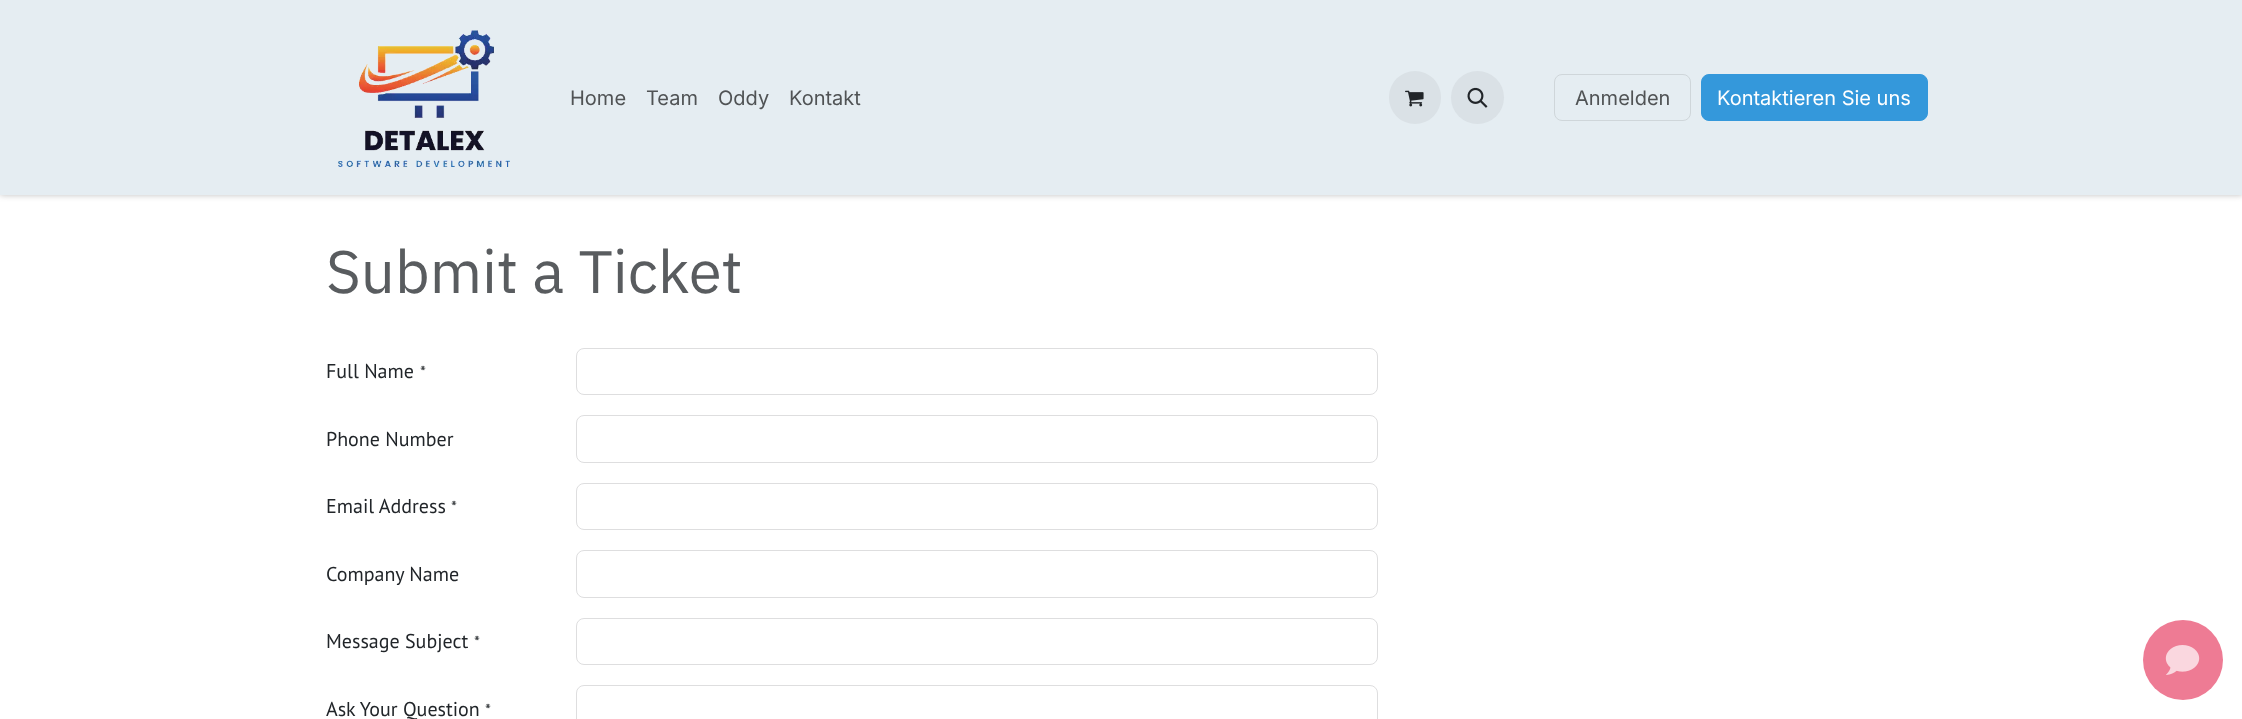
<svg xmlns="http://www.w3.org/2000/svg" width="2242" height="719" viewBox="0 0 2242 719">
  <rect width="100%" height="100%" fill="#fff"/>
  <path d="M0 0h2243v195H0z" fill="#00000040" filter="blur(3px)"/>
  <path d="M0 0h2242v195H0z" fill="#e5edf2"/>
  <image x="338" y="30" width="172" height="137" href="img/1.png"/>
  <rect x="1389" y="71" width="52" height="53" rx="26" fill="#dae1e6"/>
  <image x="1405" y="90" width="19" height="17" href="img/2.png"/>
  <circle cx="1477.5" cy="97.5" r="26.5" fill="#dae1e6"/>
  <image x="1467" y="87" width="21" height="21" href="img/3.png"/>
  <rect x="1554.5" y="74.5" width="136" height="46" rx="7.5" fill="none" stroke="#cfd6da"/>
  <rect x="1701.5" y="74.5" width="226" height="46" rx="7.5" fill="#3498db" stroke="#3498db"/>
  <rect x="576.5" y="348.5" width="801" height="46" rx="7.5" fill="none" stroke="#dededf"/>
  <rect x="576.5" y="415.5" width="801" height="47" rx="7.5" fill="none" stroke="#dededf"/>
  <rect x="576.5" y="483.5" width="801" height="46" rx="7.5" fill="none" stroke="#dededf"/>
  <rect x="576.5" y="550.5" width="801" height="47" rx="7.5" fill="none" stroke="#dededf"/>
  <rect x="576.5" y="618.5" width="801" height="46" rx="7.5" fill="none" stroke="#dededf"/>
  <rect x="576.5" y="685.5" width="801" height="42" rx="7.5" fill="none" stroke="#dededf"/>
  <circle cx="2183" cy="660" r="40" fill="#ee7b94"/>
  <image x="2165" y="645" width="35" height="30" href="img/4.png"/>
  <g font-family="Inter" font-size="20" fill="#505355">
    <text x="570" y="105">Home</text>
    <text x="646" y="105">Team</text>
    <text x="718" y="105">Oddy</text>
    <text x="789" y="105">Kontakt</text>
    <text x="1575" y="105">Anmelden</text>
  </g>
  <text x="1717" y="105" font-family="Inter" font-size="20" fill="#fff">Kontaktieren Sie uns</text>
  <text x="326" y="293" font-family="IBM Plex Sans" font-size="60" fill="#595c5f">Submit a Ticket</text>
  <text x="326" y="378" font-family="PT Sans" font-size="20" fill="#212529">Full Name</text>
  <text x="420" y="378" font-family="PT Sans" font-size="17" fill="#212529">*</text>
  <g font-family="PT Sans" font-size="20" fill="#212529">
    <text x="326" y="446">Phone Number</text>
    <text x="326" y="513">Email Address</text>
  </g>
  <text x="451" y="513" font-family="PT Sans" font-size="17" fill="#212529">*</text>
  <g font-family="PT Sans" font-size="20" fill="#212529">
    <text x="326" y="581">Company Name</text>
    <text x="326" y="648">Message Subject</text>
  </g>
  <text x="474" y="648" font-family="PT Sans" font-size="17" fill="#212529">*</text>
  <text x="326" y="716" font-family="PT Sans" font-size="20" fill="#212529">Ask Your Question</text>
  <text x="485" y="716" font-family="PT Sans" font-size="17" fill="#212529">*</text>
</svg>
